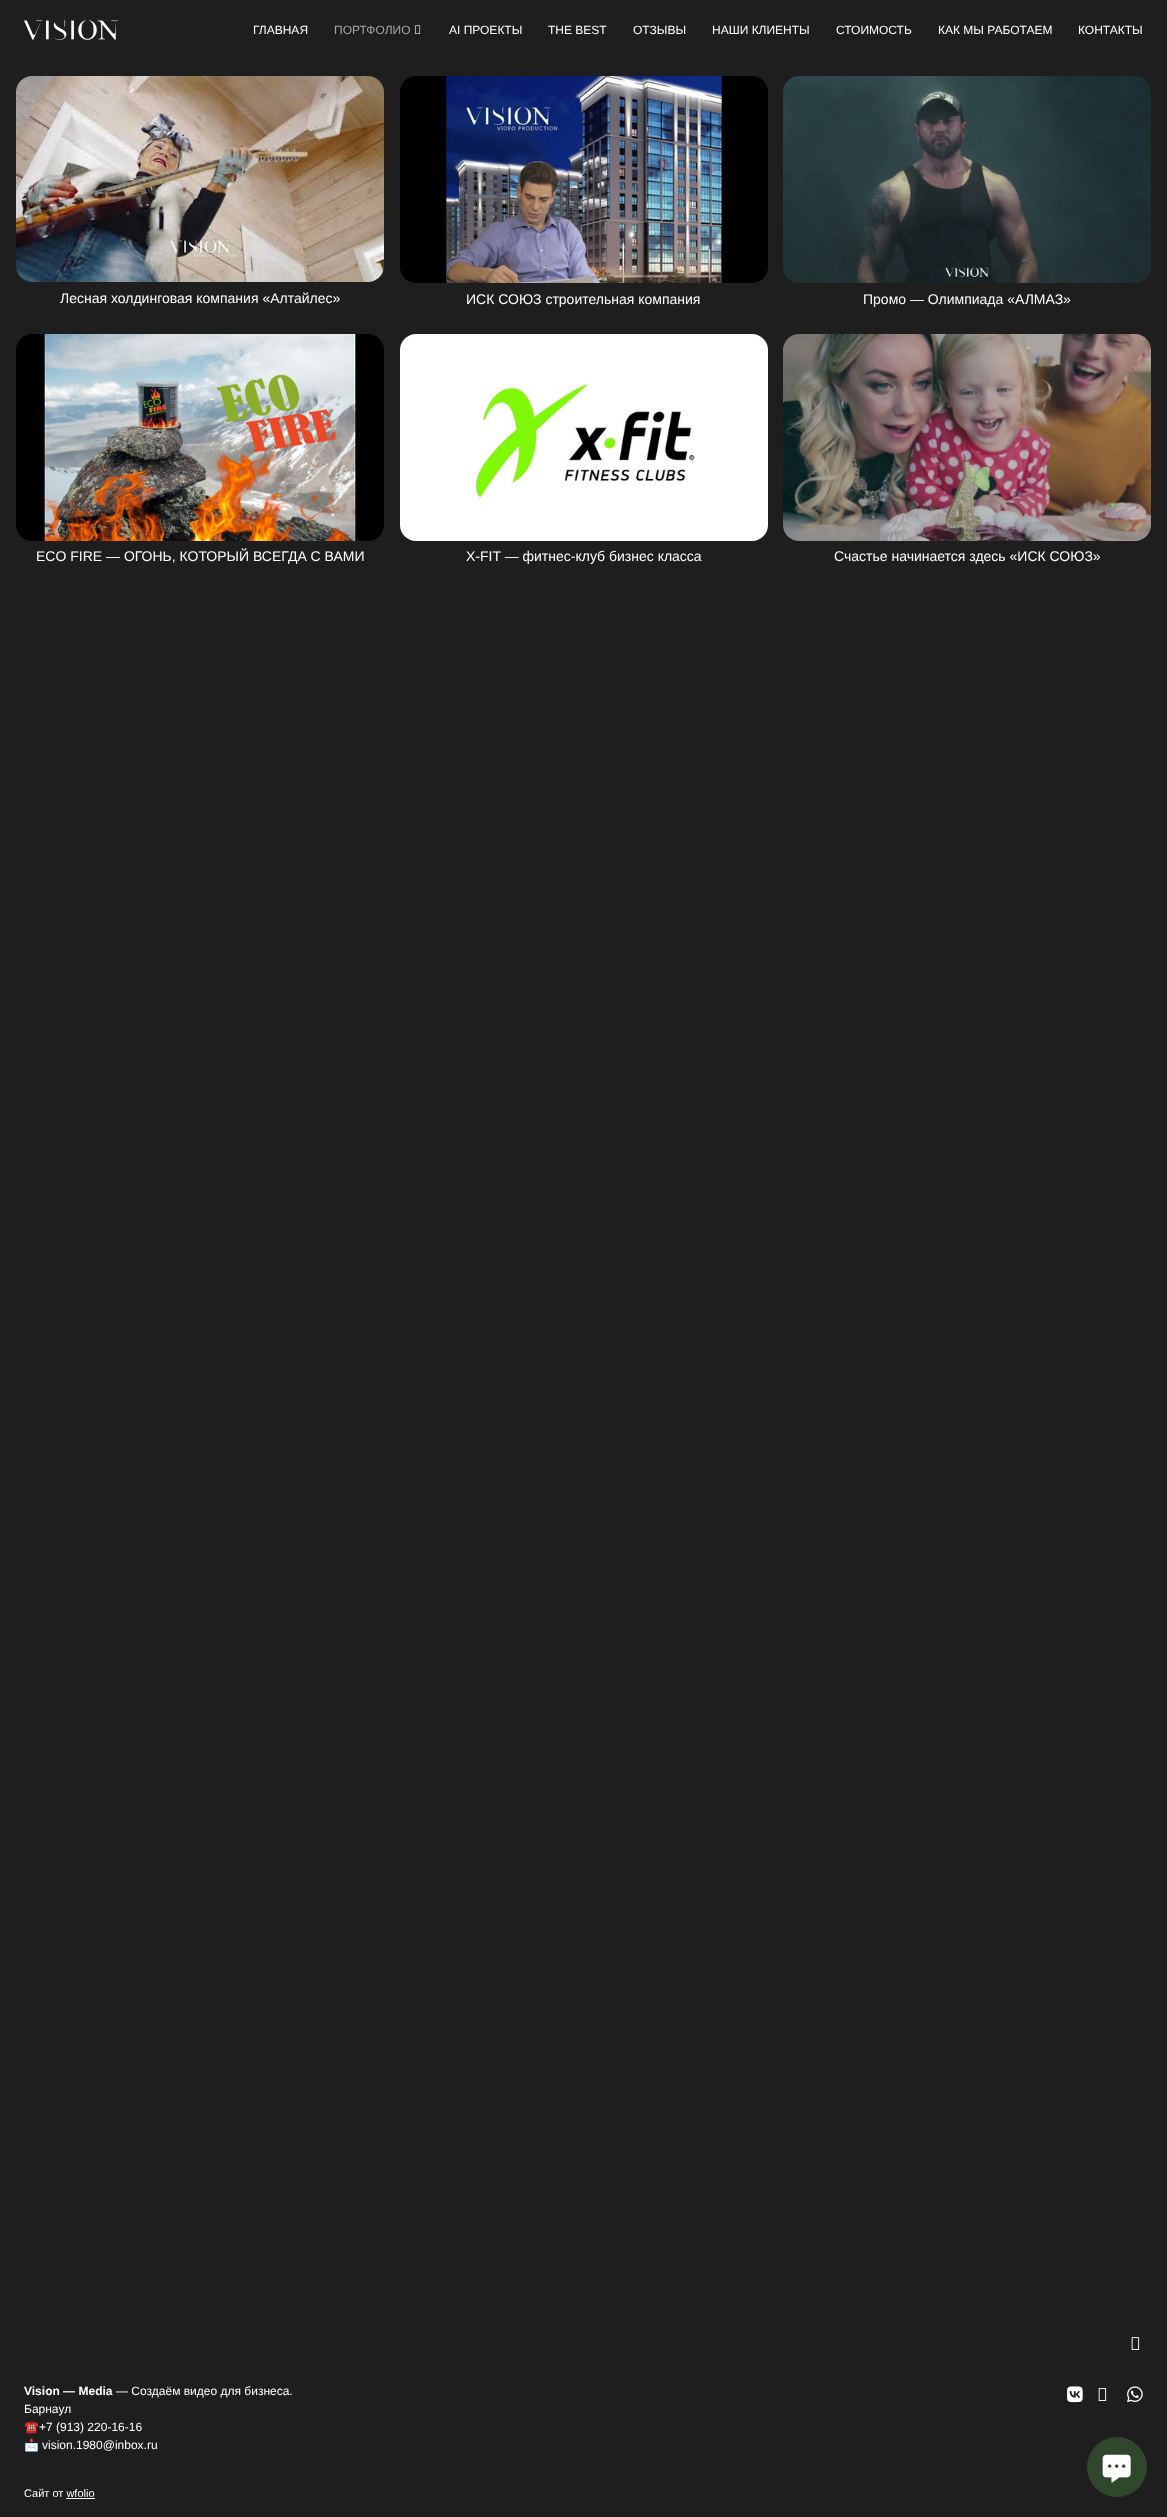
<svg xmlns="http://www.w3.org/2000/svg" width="1167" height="2517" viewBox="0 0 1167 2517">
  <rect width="100%" height="100%" fill="#1e1e1e"/>
  <image x="24" y="20" width="94" height="20" href="img/1.png"/>
  <image x="415" y="25" width="6" height="9" href="img/2.png"/>
  <image x="16" y="76" width="368" height="206" href="img/3.png"/>
  <image x="400" y="76" width="368" height="207" href="img/4.png"/>
  <image x="783" y="76" width="368" height="207" href="img/5.png"/>
  <image x="16" y="334" width="368" height="207" href="img/6.png"/>
  <image x="400" y="334" width="368" height="207" href="img/7.png"/>
  <image x="783" y="334" width="368" height="207" href="img/8.png"/>
  <path d="M66 2498h29v1H66z" fill="#fff"/>
  <image x="1067" y="2386" width="16" height="17" href="img/9.png"/>
  <image x="1098" y="2388" width="9" height="13" href="img/10.png"/>
  <image x="1127" y="2386" width="16" height="17" href="img/11.png"/>
  <image x="1131" y="2337" width="9" height="13" href="img/10.png"/>
  <circle cx="1117" cy="2467" r="30" fill="#31472d"/>
  <image x="1102" y="2454" width="29" height="29" href="img/12.png"/>
  <text x="253" y="34" font-family="Liberation Sans" font-size="12" fill="#fff">ГЛАВНАЯ</text>
  <text x="334" y="34" font-family="Liberation Sans" font-size="12" fill="#a5a5a5">ПОРТФОЛИО</text>
  <g font-family="Liberation Sans" font-size="12" fill="#fff">
    <text x="449" y="34">AI ПРОЕКТЫ</text>
    <text x="548" y="34">THE BEST</text>
    <text x="633" y="34">ОТЗЫВЫ</text>
    <text x="712" y="34">НАШИ КЛИЕНТЫ</text>
    <text x="836" y="34">СТОИМОСТЬ</text>
    <text x="938" y="34">КАК МЫ РАБОТАЕМ</text>
    <text x="1078" y="34">КОНТАКТЫ</text>
  </g>
  <g font-family="Liberation Sans" font-size="14" fill="#fff">
    <text x="60" y="303">Лесная холдинговая компания «Алтайлес»</text>
    <text x="466" y="304">ИСК СОЮЗ строительная компания</text>
    <text x="863" y="304">Промо — Олимпиада «АЛМАЗ»</text>
    <text x="36" y="561">ECO FIRE — ОГОНЬ, КОТОРЫЙ ВСЕГДА С ВАМИ</text>
    <text x="466" y="561">X-FIT — фитнес-клуб бизнес класса</text>
    <text x="834" y="561">Счастье начинается здесь «ИСК СОЮЗ»</text>
  </g>
  <text x="24" y="2395" font-family="Liberation Sans" font-size="12" font-weight="bold" fill="#fff">Vision — Media</text>
  <g font-family="Liberation Sans" font-size="12" fill="#fff">
    <text x="116" y="2395">— Создаём видео для бизнеса.</text>
    <text x="24" y="2413">Барнаул</text>
  </g>
  <text x="24" y="2431" font-family="Noto Color Emoji" font-size="12" fill="#fff">☎️</text>
  <text x="39" y="2431" font-family="Liberation Sans" font-size="12" fill="#fff">+7 (913) 220-16-16</text>
  <text x="24" y="2449" font-family="Noto Color Emoji" font-size="12" fill="#fff">📩</text>
  <text x="42" y="2449" font-family="Liberation Sans" font-size="12" fill="#fff">vision.1980@inbox.ru</text>
  <text x="24" y="2497" font-family="Liberation Sans" font-size="11" fill="#fff">Сайт от wfolio</text>
</svg>
